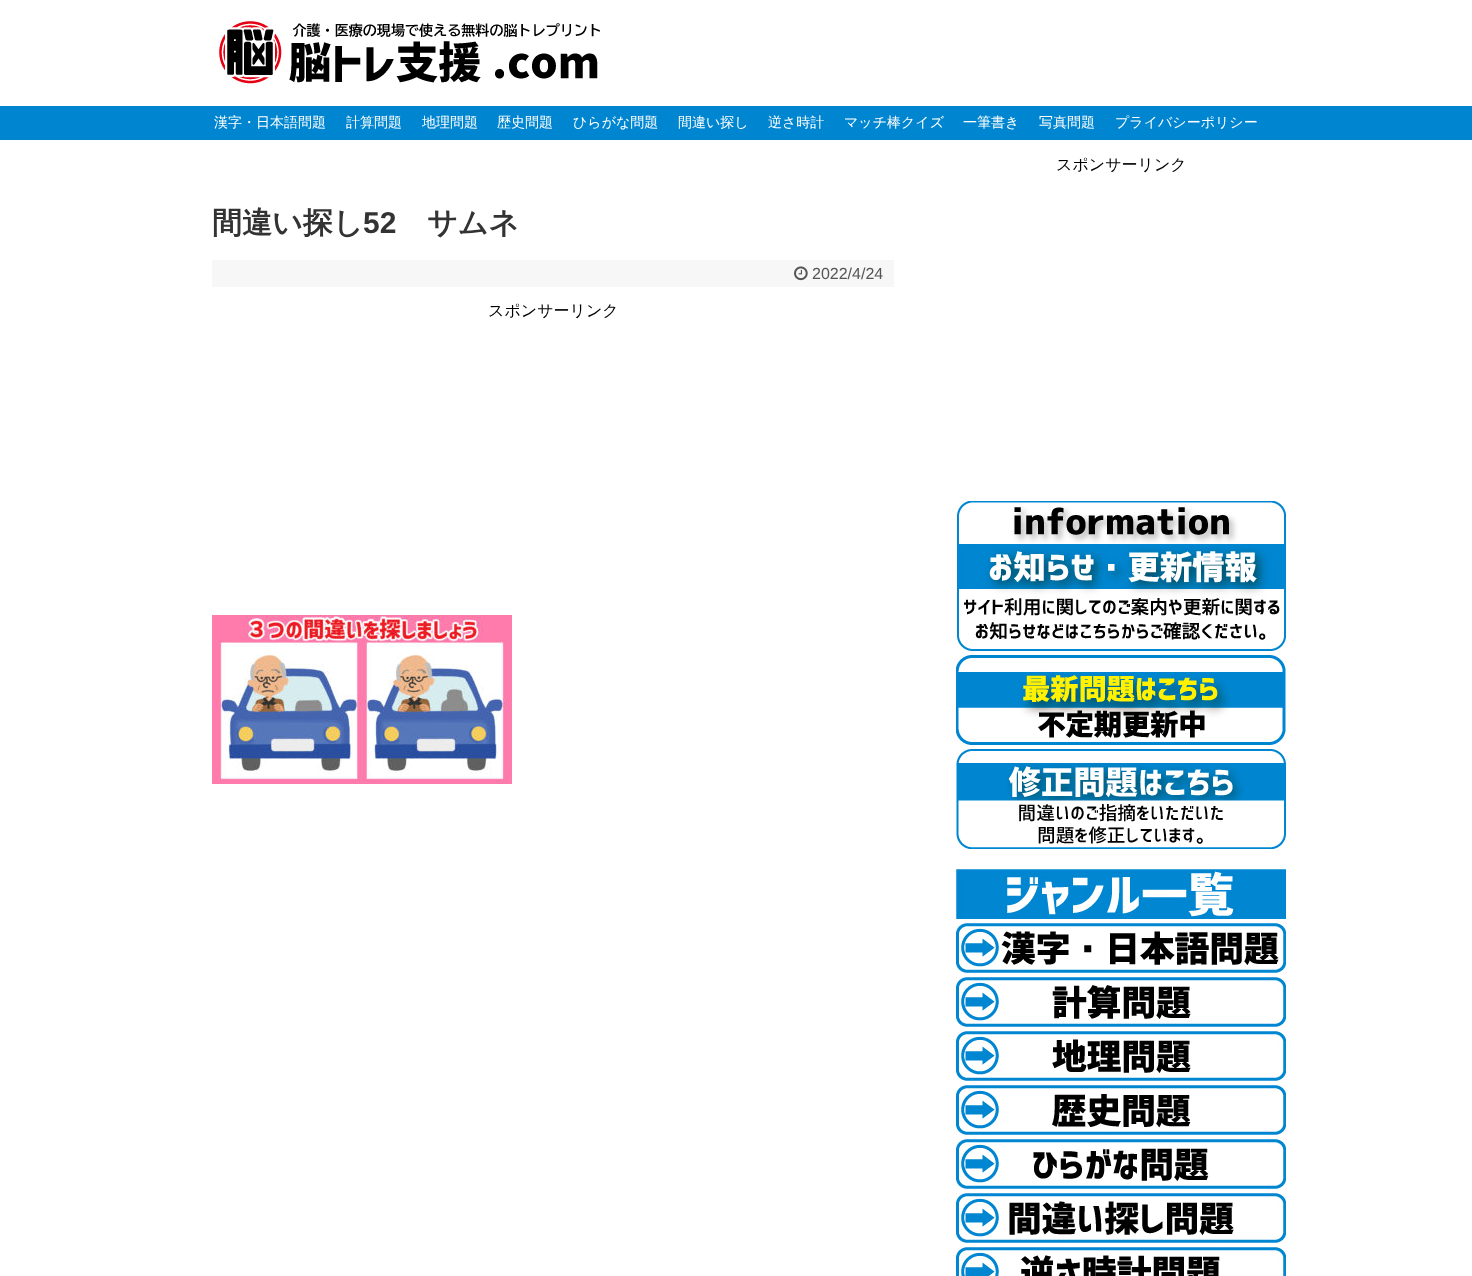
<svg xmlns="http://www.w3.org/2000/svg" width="1472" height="1276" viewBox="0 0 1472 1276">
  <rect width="100%" height="100%" fill="#fff"/>
  <image x="219" y="18" width="381" height="66" href="img/1.png"/>
  <path d="M0 106h1472v34H0z" fill="#0086d1"/>
  <image x="957" y="501" width="329" height="150" href="img/2.png"/>
  <image x="956" y="655" width="330" height="90" href="img/3.png"/>
  <image x="956" y="749" width="330" height="100" href="img/4.png"/>
  <image x="956" y="869" width="330" height="50" href="img/5.png"/>
  <image x="956" y="923" width="330" height="50" href="img/6.png"/>
  <image x="956" y="977" width="330" height="50" href="img/7.png"/>
  <image x="956" y="1031" width="330" height="50" href="img/8.png"/>
  <image x="956" y="1085" width="330" height="50" href="img/9.png"/>
  <image x="956" y="1139" width="330" height="50" href="img/10.png"/>
  <image x="956" y="1193" width="330" height="50" href="img/11.png"/>
  <image x="956" y="1247" width="330" height="29" href="img/12.png"/>
  <path d="M212 260h682v27H212z" fill="#f7f7f7"/>
  <image x="794" y="266" width="14" height="15" href="img/13.png"/>
  <image x="212" y="615" width="300" height="169" href="img/14.png"/>
  <g font-family="WenQuanYi Zen Hei" font-size="14" font-weight="500" fill="#fff">
    <text x="214" y="127">漢字・日本語問題</text>
    <text x="346" y="127">計算問題</text>
    <text x="422" y="127">地理問題</text>
    <text x="497" y="127">歴史問題</text>
    <text x="573" y="127">ひらがな問題</text>
    <text x="678" y="127">間違い探し</text>
    <text x="768" y="127">逆さ時計</text>
    <text x="844" y="127">マッチ棒クイズ</text>
    <text x="963" y="127">一筆書き</text>
    <text x="1039" y="127">写真問題</text>
    <text x="1115" y="127">プライバシーポリシー</text>
  </g>
  <text x="1056" y="170" font-family="WenQuanYi Zen Hei" font-size="16" font-weight="500" fill="#000">スポンサーリンク</text>
  <text x="212" y="233" font-family="WenQuanYi Zen Hei" font-size="30" font-weight="bold" fill="#333">間違い探し</text>
  <text x="363" y="233" font-family="Liberation Sans" font-size="30" font-weight="bold" fill="#333">52</text>
  <text x="427" y="233" font-family="WenQuanYi Zen Hei" font-size="30" font-weight="bold" fill="#333">サムネ</text>
  <text x="812" y="279" font-family="Liberation Sans" font-size="16" fill="#555">2022/4/24</text>
  <text x="488" y="316" font-family="WenQuanYi Zen Hei" font-size="16" font-weight="500" fill="#000">スポンサーリンク</text>
</svg>
